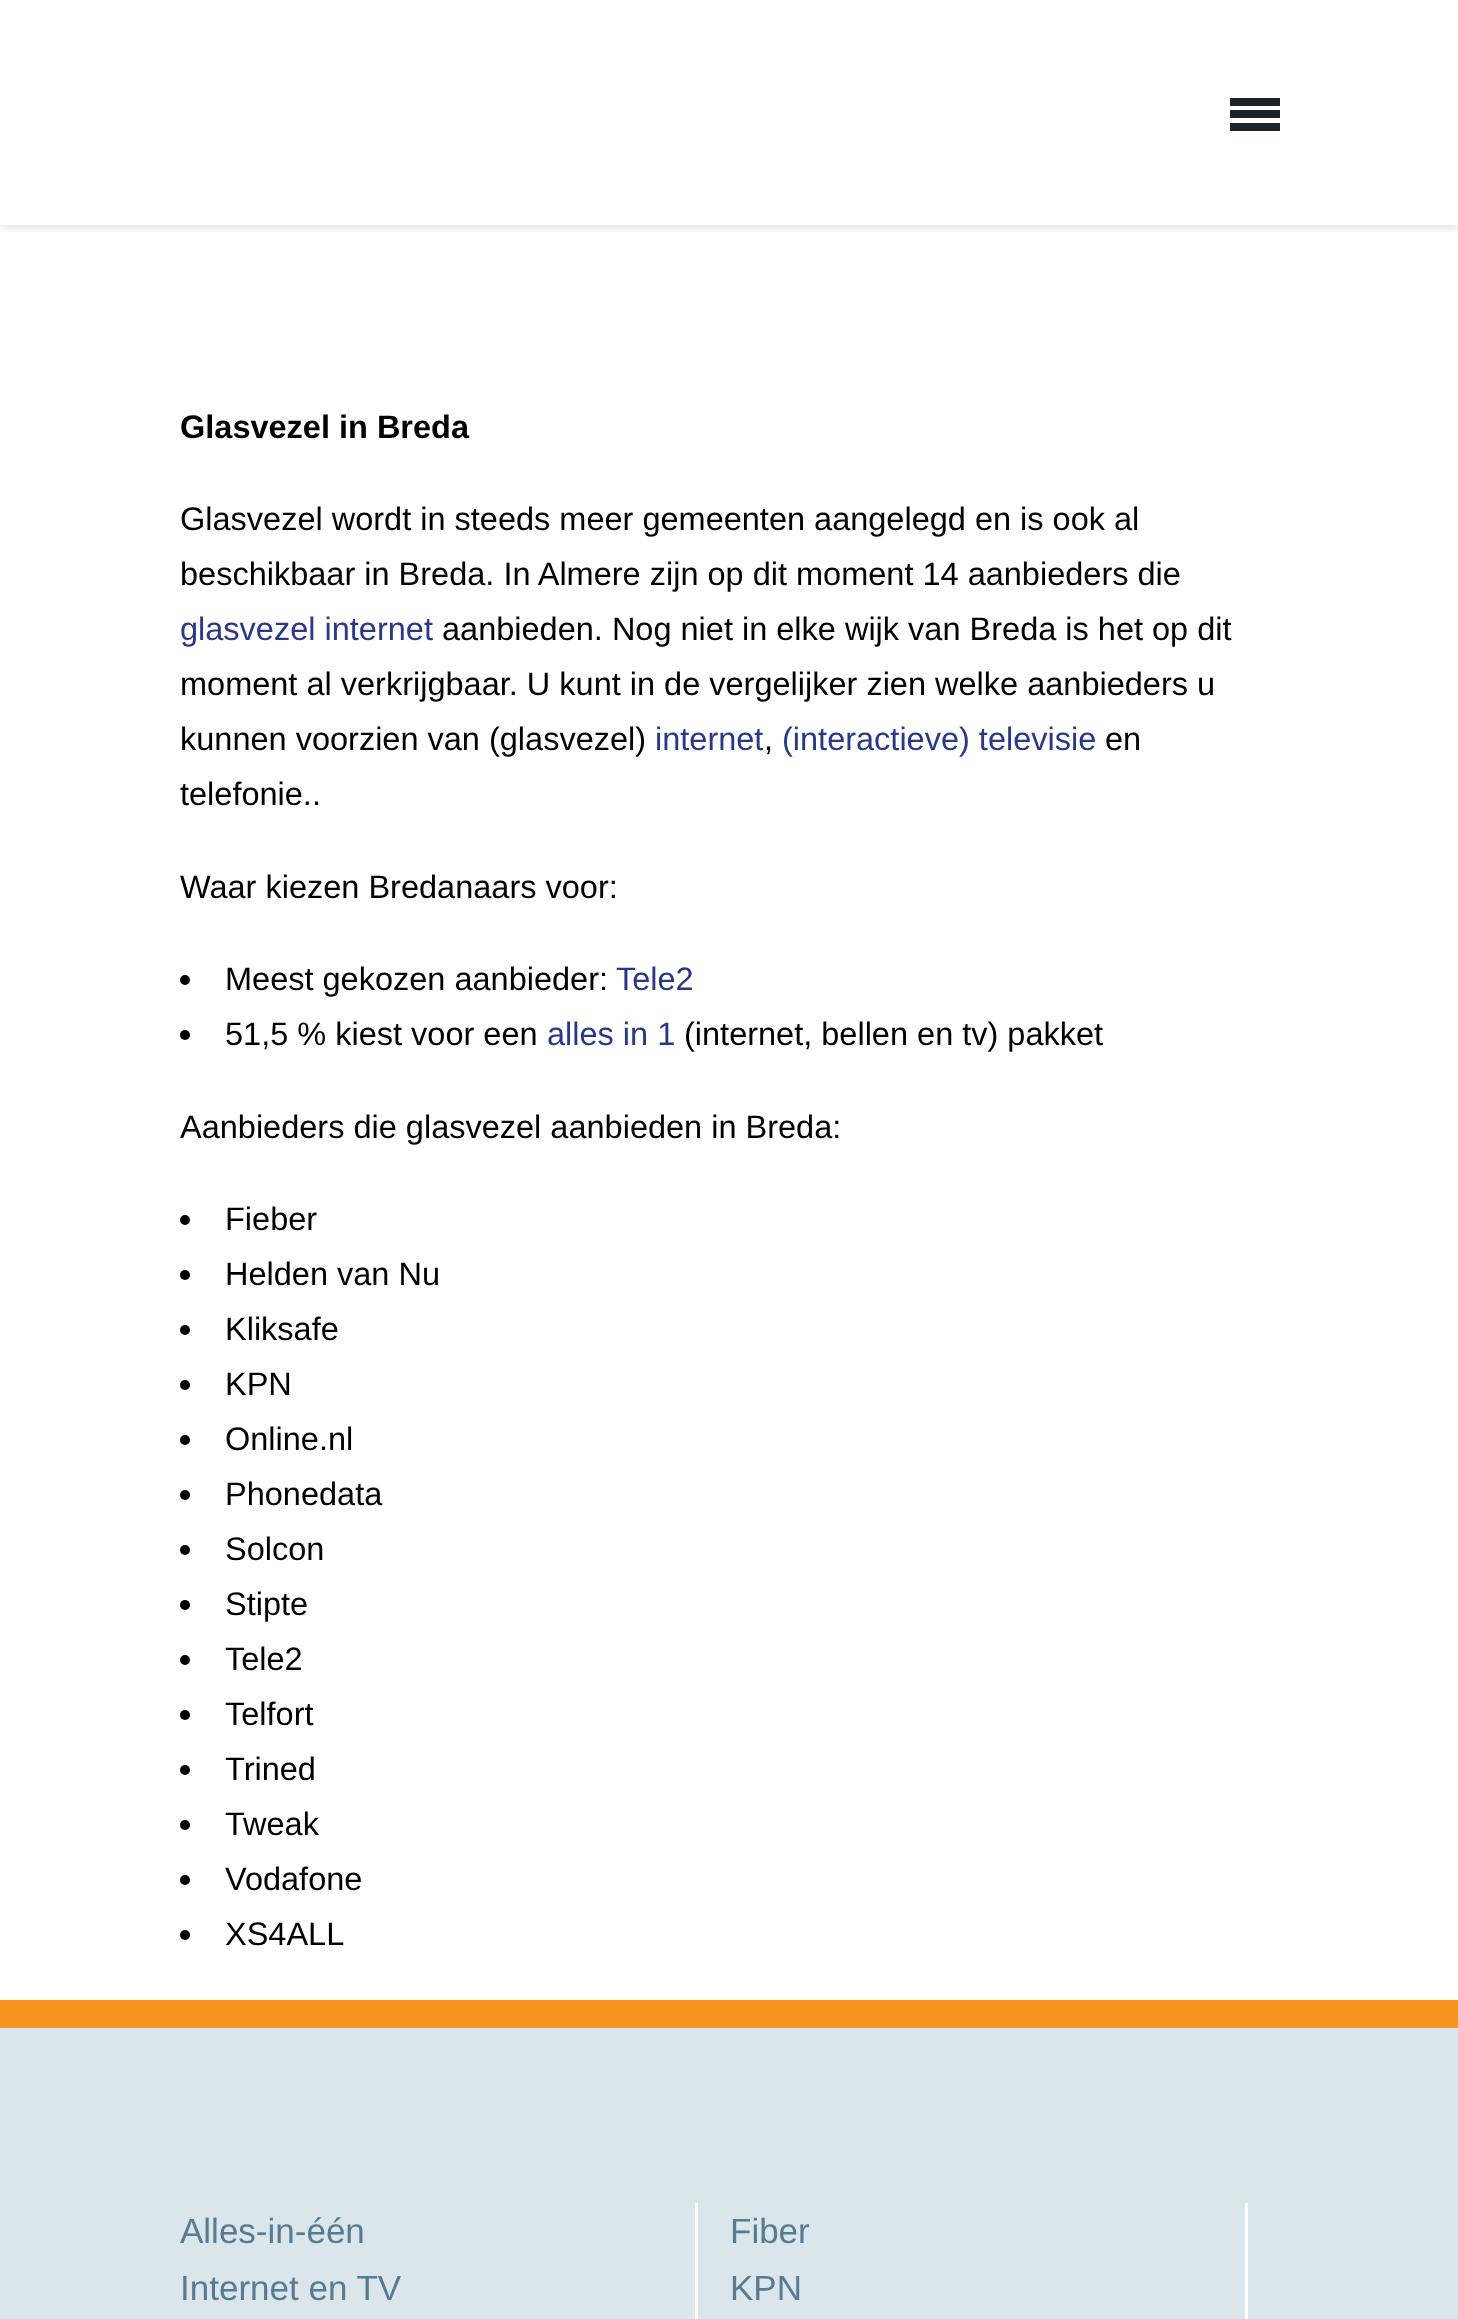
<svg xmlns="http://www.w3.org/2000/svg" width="1458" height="2319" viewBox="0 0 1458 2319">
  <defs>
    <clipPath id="clip1"><path d="M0 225h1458v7H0z"/></clipPath>
  </defs>
  <rect width="100%" height="100%" fill="#fff"/>
  <g clip-path="url(#clip1)">
    <path d="M0 3h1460v225H0z" fill="#0000001c" filter="blur(4px)"/>
  </g>
  <path d="M1230 98h50v8H1230z" fill="#1e2229"/>
  <path d="M1230 110h50v8H1230z" fill="#1e2229"/>
  <path d="M1230 123h50v8H1230z" fill="#1e2229"/>
  <circle cx="185" cy="980" r="5" fill="#000"/>
  <circle cx="185" cy="1035" r="5" fill="#000"/>
  <circle cx="185" cy="1220" r="5" fill="#000"/>
  <circle cx="185" cy="1275" r="5" fill="#000"/>
  <circle cx="185" cy="1330" r="5" fill="#000"/>
  <circle cx="185" cy="1385" r="5" fill="#000"/>
  <circle cx="185" cy="1440" r="5" fill="#000"/>
  <circle cx="185" cy="1495" r="5" fill="#000"/>
  <circle cx="185" cy="1550" r="5" fill="#000"/>
  <circle cx="185" cy="1605" r="5" fill="#000"/>
  <circle cx="185" cy="1660" r="5" fill="#000"/>
  <circle cx="185" cy="1715" r="5" fill="#000"/>
  <circle cx="185" cy="1770" r="5" fill="#000"/>
  <circle cx="185" cy="1825" r="5" fill="#000"/>
  <circle cx="185" cy="1880" r="5" fill="#000"/>
  <circle cx="185" cy="1935" r="5" fill="#000"/>
  <path d="M0 2028h1458v291H0z" fill="#dbe6ea"/>
  <path d="M0 2000h1458v28H0z" fill="#f7941f"/>
  <path d="M695 2203h3v116H695z" fill="#fff"/>
  <path d="M1245 2203h3v116H1245z" fill="#fff"/>
  <text x="180" y="438" font-family="Liberation Sans" font-size="32.5" font-weight="bold" fill="#000">Glasvezel in Breda</text>
  <g font-family="Liberation Sans" font-size="32.5" fill="#000">
    <text x="180" y="530">Glasvezel wordt in steeds meer gemeenten aangelegd en is ook al</text>
    <text x="180" y="585">beschikbaar in Breda. In Almere zijn op dit moment 14 aanbieders die</text>
  </g>
  <text x="180" y="640" font-family="Liberation Sans" font-size="32.5" fill="#2a3886">glasvezel internet</text>
  <g font-family="Liberation Sans" font-size="32.5" fill="#000">
    <text x="442" y="640">aanbieden. Nog niet in elke wijk van Breda is het op dit</text>
    <text x="180" y="695">moment al verkrijgbaar. U kunt in de vergelijker zien welke aanbieders u</text>
    <text x="180" y="750">kunnen voorzien van (glasvezel)</text>
  </g>
  <text x="655" y="750" font-family="Liberation Sans" font-size="32.5" fill="#2a3886">internet</text>
  <text x="764" y="750" font-family="Liberation Sans" font-size="32.5" fill="#000">,</text>
  <text x="782" y="750" font-family="Liberation Sans" font-size="32.5" fill="#2a3886">(interactieve) televisie</text>
  <g font-family="Liberation Sans" font-size="32.5" fill="#000">
    <text x="1105" y="750">en</text>
    <text x="180" y="805">telefonie..</text>
    <text x="180" y="898">Waar kiezen Bredanaars voor:</text>
    <text x="225" y="990">Meest gekozen aanbieder:</text>
  </g>
  <text x="616" y="990" font-family="Liberation Sans" font-size="32.5" fill="#2a3886">Tele2</text>
  <text x="225" y="1045" font-family="Liberation Sans" font-size="32.5" fill="#000">51,5 % kiest voor een</text>
  <text x="547" y="1045" font-family="Liberation Sans" font-size="32.5" fill="#2a3886">alles in 1</text>
  <g font-family="Liberation Sans" font-size="32.5" fill="#000">
    <text x="684" y="1045">(internet, bellen en tv) pakket</text>
    <text x="180" y="1138">Aanbieders die glasvezel aanbieden in Breda:</text>
    <text x="225" y="1230">Fieber</text>
    <text x="225" y="1285">Helden van Nu</text>
    <text x="225" y="1340">Kliksafe</text>
    <text x="225" y="1395">KPN</text>
    <text x="225" y="1450">Online.nl</text>
    <text x="225" y="1505">Phonedata</text>
    <text x="225" y="1560">Solcon</text>
    <text x="225" y="1615">Stipte</text>
    <text x="225" y="1670">Tele2</text>
    <text x="225" y="1725">Telfort</text>
    <text x="225" y="1780">Trined</text>
    <text x="225" y="1835">Tweak</text>
    <text x="225" y="1890">Vodafone</text>
    <text x="225" y="1945">XS4ALL</text>
  </g>
  <g font-family="Liberation Sans" font-size="35" fill="#577b92">
    <text x="180" y="2243">Alles-in-één</text>
    <text x="180" y="2300">Internet en TV</text>
    <text x="730" y="2243">Fiber</text>
    <text x="730" y="2300">KPN</text>
  </g>
</svg>
